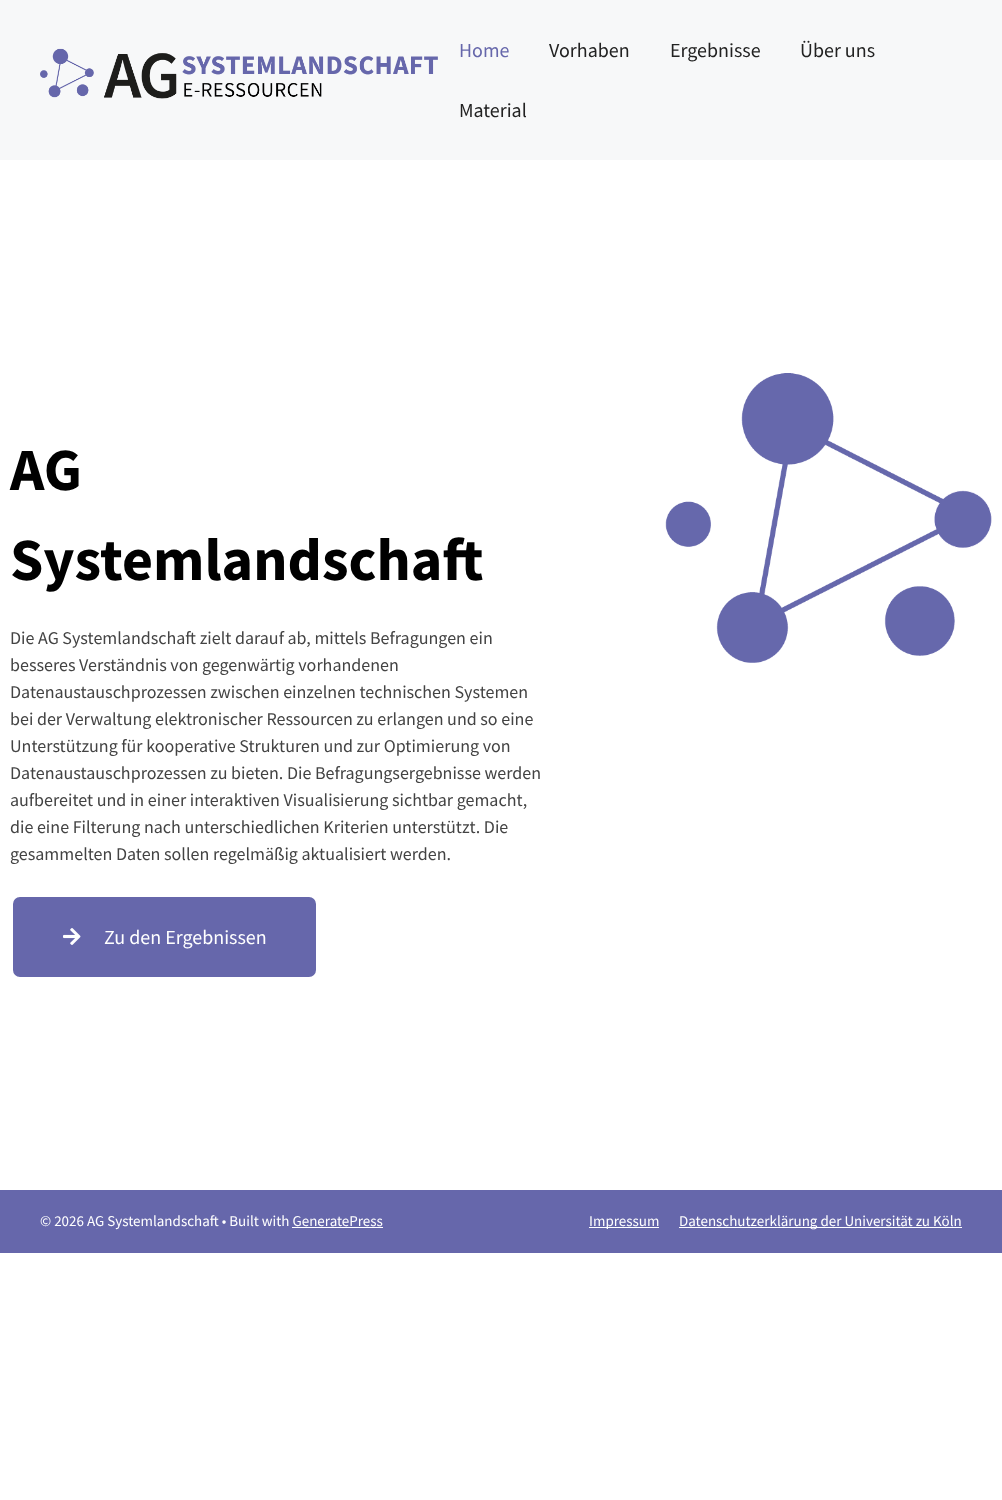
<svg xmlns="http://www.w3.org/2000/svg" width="1002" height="1500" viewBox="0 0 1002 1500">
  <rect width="100%" height="100%" fill="#fff"/>
  <path d="M0 0h1002v160H0z" fill="#f7f8f9"/>
  <image x="40" y="48" width="398" height="51" href="img/1.png"/>
  <rect x="11.5" y="895.5" width="306" height="83" rx="8.5" fill="#6667ab" stroke="#fff" stroke-width="3"/>
  <image x="63" y="928" width="18" height="17" href="img/2.png"/>
  <image x="665" y="373" width="327" height="290" href="img/3.png"/>
  <path d="M0 1190h1002v63H0z" fill="#6667ab"/>
  <path d="M292 1227h91v1H292z" fill="#fff"/>
  <path d="M589 1227h70v1H589z" fill="#fff"/>
  <path d="M679 1227h283v1H679z" fill="#fff"/>
  <text x="459" y="57" font-family="Source Sans Pro" font-size="20" fill="#6667ab">Home</text>
  <g font-family="Source Sans Pro" font-size="20" fill="#222">
    <text x="549" y="57">Vorhaben</text>
    <text x="670" y="57">Ergebnisse</text>
    <text x="800" y="57">Über uns</text>
    <text x="459" y="117">Material</text>
  </g>
  <g font-family="Source Sans Pro" font-size="60" font-weight="bold" fill="#000">
    <text x="10" y="490">AG</text>
    <text x="10" y="580">Systemlandschaft</text>
  </g>
  <g font-family="Source Sans Pro" font-size="18" fill="#434343">
    <text x="10" y="644">Die AG Systemlandschaft zielt darauf ab, mittels Befragungen ein</text>
    <text x="10" y="671">besseres Verständnis von gegenwärtig vorhandenen</text>
    <text x="10" y="698">Datenaustauschprozessen zwischen einzelnen technischen Systemen</text>
    <text x="10" y="725">bei der Verwaltung elektronischer Ressourcen zu erlangen und so eine</text>
    <text x="10" y="752">Unterstützung für kooperative Strukturen und zur Optimierung von</text>
    <text x="10" y="779">Datenaustauschprozessen zu bieten. Die Befragungsergebnisse werden</text>
    <text x="10" y="806">aufbereitet und in einer interaktiven Visualisierung sichtbar gemacht,</text>
    <text x="10" y="833">die eine Filterung nach unterschiedlichen Kriterien unterstützt. Die</text>
    <text x="10" y="860">gesammelten Daten sollen regelmäßig aktualisiert werden.</text>
  </g>
  <text x="104" y="944" font-family="Source Sans Pro" font-size="20" fill="#fff">Zu den Ergebnissen</text>
  <g font-family="Source Sans Pro" font-size="15" fill="#fff">
    <text x="40" y="1226">© 2026 AG Systemlandschaft • Built with GeneratePress</text>
    <text x="589" y="1226">Impressum</text>
    <text x="679" y="1226">Datenschutzerklärung der Universität zu Köln</text>
  </g>
</svg>
